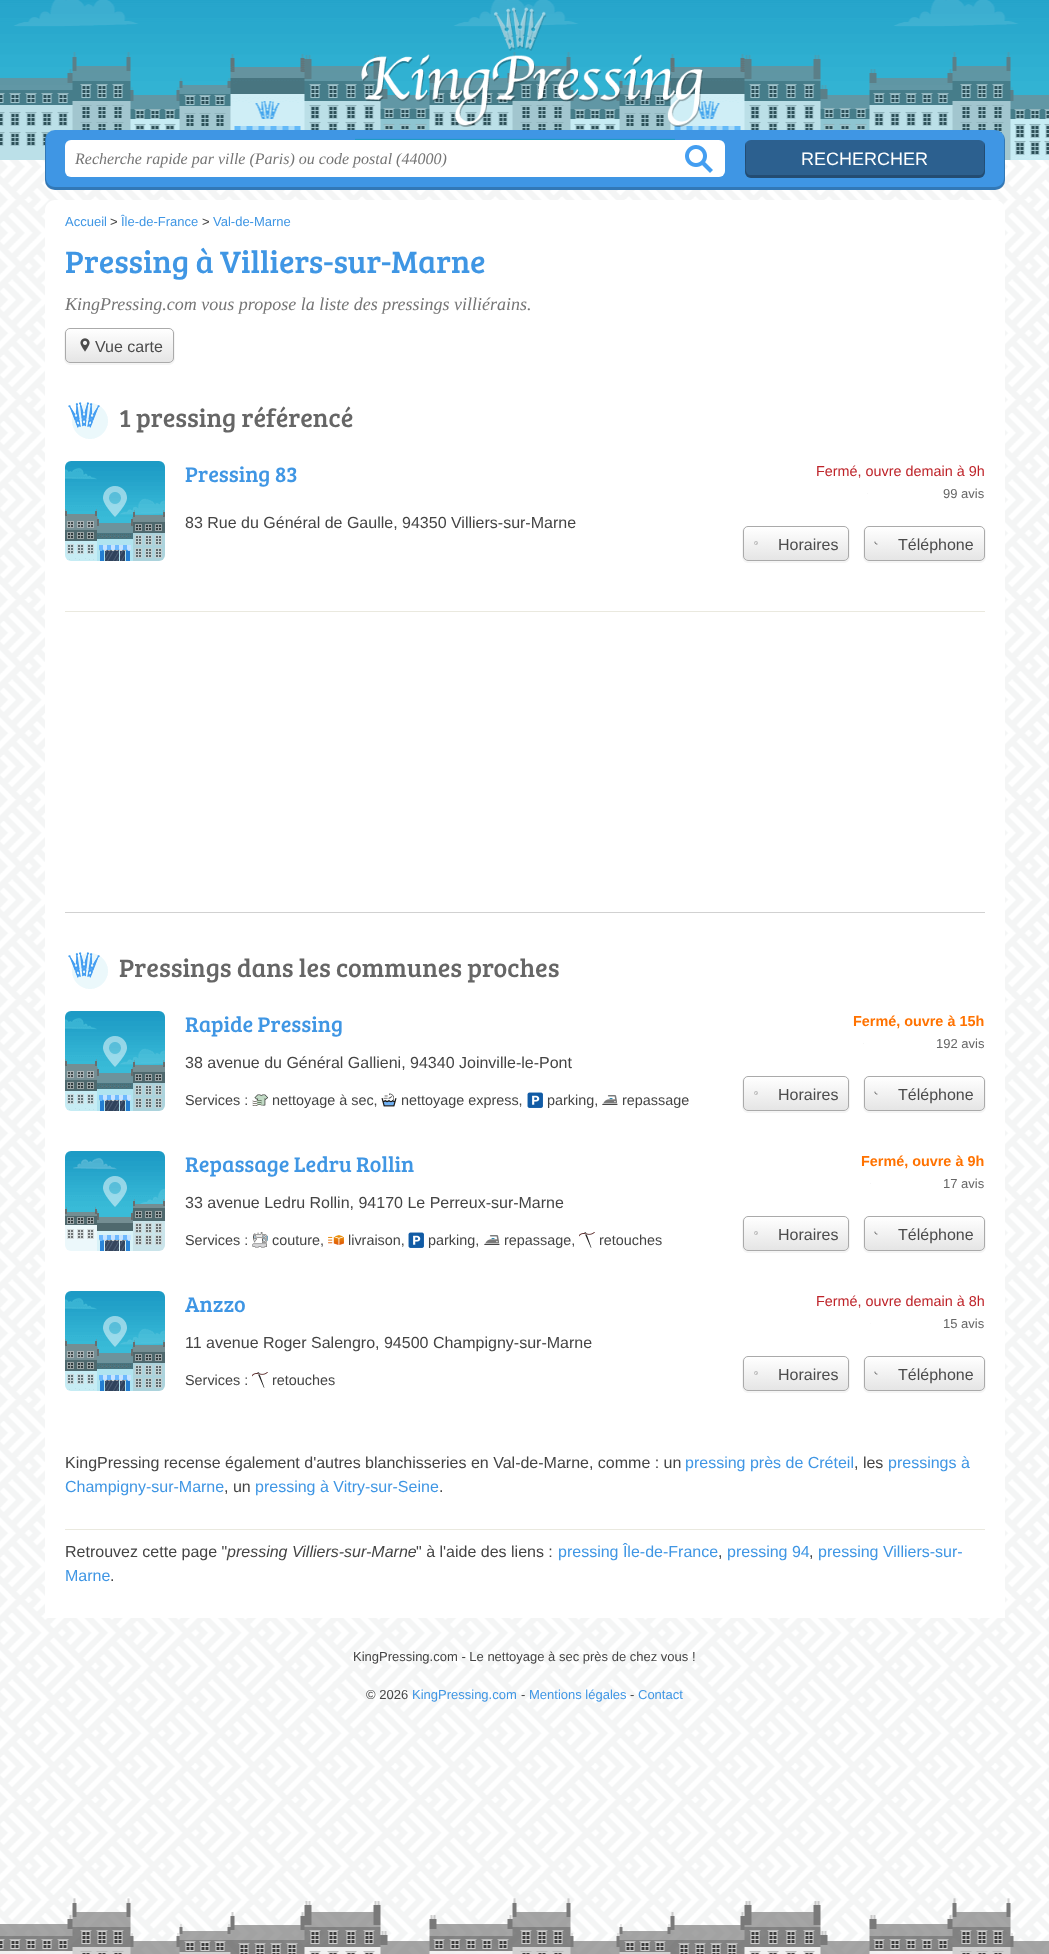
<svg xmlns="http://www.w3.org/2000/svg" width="1049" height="1954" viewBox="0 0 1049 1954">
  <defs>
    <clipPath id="clip1"><rect x="65" y="328" width="109" height="35" rx="5"/></clipPath>
    <linearGradient id="g1" gradientUnits="userSpaceOnUse" x1="120" y1="329" x2="120" y2="362"><stop offset="0" stop-color="#fff"/><stop offset="1" stop-color="#e5e5e5"/></linearGradient>
    <clipPath id="clip2"><rect x="743" y="526" width="106" height="35" rx="5"/></clipPath>
    <linearGradient id="g2" gradientUnits="userSpaceOnUse" x1="796" y1="527" x2="796" y2="560"><stop offset="0" stop-color="#fff"/><stop offset="1" stop-color="#e5e5e5"/></linearGradient>
    <clipPath id="clip3"><rect x="864" y="526" width="121" height="35" rx="5"/></clipPath>
    <linearGradient id="g3" gradientUnits="userSpaceOnUse" x1="925" y1="527" x2="925" y2="560"><stop offset="0" stop-color="#fff"/><stop offset="1" stop-color="#e5e5e5"/></linearGradient>
    <clipPath id="clip4"><rect x="743" y="1076" width="106" height="35" rx="5"/></clipPath>
    <linearGradient id="g4" gradientUnits="userSpaceOnUse" x1="796" y1="1077" x2="796" y2="1110"><stop offset="0" stop-color="#fff"/><stop offset="1" stop-color="#e5e5e5"/></linearGradient>
    <clipPath id="clip5"><rect x="864" y="1076" width="121" height="35" rx="5"/></clipPath>
    <linearGradient id="g5" gradientUnits="userSpaceOnUse" x1="925" y1="1077" x2="925" y2="1110"><stop offset="0" stop-color="#fff"/><stop offset="1" stop-color="#e5e5e5"/></linearGradient>
    <clipPath id="clip6"><rect x="743" y="1216" width="106" height="35" rx="5"/></clipPath>
    <linearGradient id="g6" gradientUnits="userSpaceOnUse" x1="796" y1="1217" x2="796" y2="1250"><stop offset="0" stop-color="#fff"/><stop offset="1" stop-color="#e5e5e5"/></linearGradient>
    <clipPath id="clip7"><rect x="864" y="1216" width="121" height="35" rx="5"/></clipPath>
    <linearGradient id="g7" gradientUnits="userSpaceOnUse" x1="925" y1="1217" x2="925" y2="1250"><stop offset="0" stop-color="#fff"/><stop offset="1" stop-color="#e5e5e5"/></linearGradient>
    <clipPath id="clip8"><rect x="743" y="1356" width="106" height="35" rx="5"/></clipPath>
    <linearGradient id="g8" gradientUnits="userSpaceOnUse" x1="796" y1="1357" x2="796" y2="1390"><stop offset="0" stop-color="#fff"/><stop offset="1" stop-color="#e5e5e5"/></linearGradient>
    <clipPath id="clip9"><rect x="864" y="1356" width="121" height="35" rx="5"/></clipPath>
    <linearGradient id="g9" gradientUnits="userSpaceOnUse" x1="925" y1="1357" x2="925" y2="1390"><stop offset="0" stop-color="#fff"/><stop offset="1" stop-color="#e5e5e5"/></linearGradient>
  </defs>
  <rect width="100%" height="100%" fill="#fff"/>
  <image x="0" y="1734" width="1049" height="220" href="img/1.png"/>
  <image x="0" y="160" width="1049" height="1574" href="img/2.png"/>
  <image x="0" y="0" width="1049" height="160" href="img/3.png"/>
  <rect x="45" y="130" width="960" height="60" rx="10" fill="#3f96e4"/>
  <path d="M47 134C46 136 45 138 45 140V180C45 186 49 190 55 190H995C1001 190 1005 186 1005 180V140C1005 138 1004 136 1003 134L1004 138V178C1004 183 1000 187 995 187H55C50 187 46 183 46 178V138Z" fill="#00000033"/>
  <image x="355" y="7" width="348" height="133" href="img/4.png"/>
  <rect x="65" y="140" width="660" height="37" rx="6" fill="#fff"/>
  <image x="685" y="145" width="28" height="28" href="img/5.png"/>
  <rect x="745" y="140" width="240" height="38" rx="6" fill="#2c608f"/>
  <path d="M746 142C745 143 745 145 745 146V172C745 175 748 178 751 178H979C982 178 985 175 985 172V146C985 145 985 143 984 142V161C984 166 986 175 979 175H751C744 175 746 166 746 161Z" fill="#00000033"/>
  <path d="M55 200H995C1000.5 200 1005 204.5 1005 210V1618H45V210C45 204.5 49.5 200 55 200Z" fill="#fff"/>
  <path d="M171 328C173 329 174 331 174 333V358C174 361 172 363 169 363H70C67 363 65 361 65 358V333C65 331 66 329 68 328C66 329 64 331 64 334V359C64 362 67 365 70 365H169C172 365 175 362 175 359V334C175 331 173 329 171 328Z" fill="#f5f5f5"/>
  <g clip-path="url(#clip1)">
    <path d="M65 329h109v33H65z" fill="url(#g1)"/>
  </g>
  <rect x="65.5" y="328.5" width="108" height="34" rx="4.5" fill="none" stroke="#aaa"/>
  <image x="80" y="338" width="10" height="14" href="img/6.png"/>
  <path d="M65 611h920v1H65z" fill="#eae9df"/>
  <image x="68" y="402" width="40" height="37" href="img/7.png"/>
  <image x="65" y="461" width="100" height="100" href="img/8.png"/>
  <path d="M867 493h1v1H867z" fill="#f7f7f7"/>
  <path d="M846 526C848 527 849 529 849 531V556C849 559 847 561 844 561H748C745 561 743 559 743 556V531C743 529 744 527 746 526C744 527 742 529 742 532V557C742 560 745 563 748 563H844C847 563 850 560 850 557V532C850 529 848 527 846 526Z" fill="#f5f5f5"/>
  <g clip-path="url(#clip2)">
    <path d="M743 527h106v33H743z" fill="url(#g2)"/>
  </g>
  <rect x="743.5" y="526.5" width="105" height="34" rx="4.5" fill="none" stroke="#aaa"/>
  <image x="754" y="541" width="4" height="4" href="img/9.png"/>
  <path d="M982 526C984 527 985 529 985 531V556C985 559 983 561 980 561H869C866 561 864 559 864 556V531C864 529 865 527 867 526C865 527 863 529 863 532V557C863 560 866 563 869 563H980C983 563 986 560 986 557V532C986 529 984 527 982 526Z" fill="#f5f5f5"/>
  <g clip-path="url(#clip3)">
    <path d="M864 527h121v33H864z" fill="url(#g3)"/>
  </g>
  <rect x="864.5" y="526.5" width="120" height="34" rx="4.5" fill="none" stroke="#aaa"/>
  <image x="874" y="541" width="4" height="4" href="img/10.png"/>
  <path d="M65 912h920v1H65z" fill="#d1d1d1"/>
  <image x="68" y="952" width="40" height="37" href="img/7.png"/>
  <image x="65" y="1011" width="100" height="100" href="img/8.png"/>
  <path d="M863 1043h1v1H863z" fill="#f5f5f5"/>
  <image x="252" y="1094" width="16" height="12" href="img/11.png"/>
  <image x="381" y="1093" width="16" height="14" href="img/12.png"/>
  <image x="527" y="1092" width="16" height="16" href="img/13.png"/>
  <image x="602" y="1095" width="16" height="10" href="img/14.png"/>
  <path d="M846 1076C848 1077 849 1079 849 1081V1106C849 1109 847 1111 844 1111H748C745 1111 743 1109 743 1106V1081C743 1079 744 1077 746 1076C744 1077 742 1079 742 1082V1107C742 1110 745 1113 748 1113H844C847 1113 850 1110 850 1107V1082C850 1079 848 1077 846 1076Z" fill="#f5f5f5"/>
  <g clip-path="url(#clip4)">
    <path d="M743 1077h106v33H743z" fill="url(#g4)"/>
  </g>
  <rect x="743.5" y="1076.5" width="105" height="34" rx="4.5" fill="none" stroke="#aaa"/>
  <image x="754" y="1091" width="4" height="4" href="img/9.png"/>
  <path d="M982 1076C984 1077 985 1079 985 1081V1106C985 1109 983 1111 980 1111H869C866 1111 864 1109 864 1106V1081C864 1079 865 1077 867 1076C865 1077 863 1079 863 1082V1107C863 1110 866 1113 869 1113H980C983 1113 986 1110 986 1107V1082C986 1079 984 1077 982 1076Z" fill="#f5f5f5"/>
  <g clip-path="url(#clip5)">
    <path d="M864 1077h121v33H864z" fill="url(#g5)"/>
  </g>
  <rect x="864.5" y="1076.5" width="120" height="34" rx="4.5" fill="none" stroke="#aaa"/>
  <image x="874" y="1091" width="4" height="4" href="img/10.png"/>
  <image x="65" y="1151" width="100" height="100" href="img/15.png"/>
  <path d="M870 1183h1v1H870z" fill="#f5f5f5"/>
  <image x="252" y="1232" width="16" height="16" href="img/16.png"/>
  <image x="328" y="1235" width="16" height="10" href="img/17.png"/>
  <image x="408" y="1232" width="16" height="16" href="img/13.png"/>
  <image x="484" y="1235" width="16" height="10" href="img/14.png"/>
  <image x="579" y="1232" width="16" height="16" href="img/18.png"/>
  <path d="M846 1216C848 1217 849 1219 849 1221V1246C849 1249 847 1251 844 1251H748C745 1251 743 1249 743 1246V1221C743 1219 744 1217 746 1216C744 1217 742 1219 742 1222V1247C742 1250 745 1253 748 1253H844C847 1253 850 1250 850 1247V1222C850 1219 848 1217 846 1216Z" fill="#f5f5f5"/>
  <g clip-path="url(#clip6)">
    <path d="M743 1217h106v33H743z" fill="url(#g6)"/>
  </g>
  <rect x="743.5" y="1216.5" width="105" height="34" rx="4.5" fill="none" stroke="#aaa"/>
  <image x="754" y="1231" width="4" height="4" href="img/9.png"/>
  <path d="M982 1216C984 1217 985 1219 985 1221V1246C985 1249 983 1251 980 1251H869C866 1251 864 1249 864 1246V1221C864 1219 865 1217 867 1216C865 1217 863 1219 863 1222V1247C863 1250 866 1253 869 1253H980C983 1253 986 1250 986 1247V1222C986 1219 984 1217 982 1216Z" fill="#f5f5f5"/>
  <g clip-path="url(#clip7)">
    <path d="M864 1217h121v33H864z" fill="url(#g7)"/>
  </g>
  <rect x="864.5" y="1216.5" width="120" height="34" rx="4.5" fill="none" stroke="#aaa"/>
  <image x="874" y="1231" width="4" height="4" href="img/10.png"/>
  <image x="65" y="1291" width="100" height="100" href="img/8.png"/>
  <path d="M870 1323h1v1H870z" fill="#fafafa"/>
  <image x="252" y="1372" width="16" height="16" href="img/18.png"/>
  <path d="M846 1356C848 1357 849 1359 849 1361V1386C849 1389 847 1391 844 1391H748C745 1391 743 1389 743 1386V1361C743 1359 744 1357 746 1356C744 1357 742 1359 742 1362V1387C742 1390 745 1393 748 1393H844C847 1393 850 1390 850 1387V1362C850 1359 848 1357 846 1356Z" fill="#f5f5f5"/>
  <g clip-path="url(#clip8)">
    <path d="M743 1357h106v33H743z" fill="url(#g8)"/>
  </g>
  <rect x="743.5" y="1356.5" width="105" height="34" rx="4.5" fill="none" stroke="#aaa"/>
  <image x="754" y="1371" width="4" height="4" href="img/9.png"/>
  <path d="M982 1356C984 1357 985 1359 985 1361V1386C985 1389 983 1391 980 1391H869C866 1391 864 1389 864 1386V1361C864 1359 865 1357 867 1356C865 1357 863 1359 863 1362V1387C863 1390 866 1393 869 1393H980C983 1393 986 1390 986 1387V1362C986 1359 984 1357 982 1356Z" fill="#f5f5f5"/>
  <g clip-path="url(#clip9)">
    <path d="M864 1357h121v33H864z" fill="url(#g9)"/>
  </g>
  <rect x="864.5" y="1356.5" width="120" height="34" rx="4.5" fill="none" stroke="#aaa"/>
  <image x="874" y="1371" width="4" height="4" href="img/10.png"/>
  <path d="M65 1529h920v1H65z" fill="#eae9df"/>
  <image x="0" y="1898" width="1049" height="56" href="img/19.png"/>
  <text x="75" y="164" font-family="Liberation Serif" font-size="16" font-style="italic" fill="#757575">Recherche rapide par ville (Paris) ou code postal (44000)</text>
  <text x="801" y="165" font-family="Liberation Sans" font-size="18" fill="#fff">RECHERCHER</text>
  <text x="65" y="226" font-family="Liberation Sans" font-size="13" fill="#3f96e4">Accueil</text>
  <text x="110" y="226" font-family="Liberation Sans" font-size="13" fill="#444">&gt;</text>
  <text x="121" y="226" font-family="Liberation Sans" font-size="13" fill="#3f96e4">Île-de-France</text>
  <text x="202" y="226" font-family="Liberation Sans" font-size="13" fill="#444">&gt;</text>
  <text x="213" y="226" font-family="Liberation Sans" font-size="13" fill="#3f96e4">Val-de-Marne</text>
  <text x="65" y="273" font-family="Bree Serif" font-size="32" fill="#3f96e4">Pressing à Villiers-sur-Marne</text>
  <text x="65" y="310" font-family="Liberation Serif" font-size="18" font-style="italic" fill="#757575">KingPressing.com vous propose la liste des pressings villiérains.</text>
  <text x="95" y="352" font-family="Liberation Sans" font-size="16" fill="#4b4b4b">Vue carte</text>
  <text x="119" y="427" font-family="Bree Serif" font-size="26" fill="#666">1 pressing référencé</text>
  <text x="185" y="482" font-family="Bree Serif" font-size="22" fill="#3f96e4">Pressing 83</text>
  <text x="816" y="476" font-family="Liberation Sans" font-size="14.4" fill="#be2329">Fermé, ouvre demain à 9h</text>
  <text x="943" y="498" font-family="Liberation Sans" font-size="13" fill="#666">99 avis</text>
  <text x="185" y="528" font-family="Liberation Sans" font-size="16" fill="#444">83 Rue du Général de Gaulle, 94350 Villiers-sur-Marne</text>
  <g font-family="Liberation Sans" font-size="16" fill="#4b4b4b">
    <text x="778" y="550">Horaires</text>
    <text x="898" y="550">Téléphone</text>
  </g>
  <text x="119" y="977" font-family="Bree Serif" font-size="26" fill="#666">Pressings dans les communes proches</text>
  <text x="185" y="1032" font-family="Bree Serif" font-size="22" fill="#3f96e4">Rapide Pressing</text>
  <text x="853" y="1026" font-family="Liberation Sans" font-size="14.4" font-weight="bold" fill="#ff7200">Fermé, ouvre à 15h</text>
  <text x="936" y="1048" font-family="Liberation Sans" font-size="13" fill="#666">192 avis</text>
  <text x="185" y="1068" font-family="Liberation Sans" font-size="16" fill="#444">38 avenue du Général Gallieni, 94340 Joinville-le-Pont</text>
  <g font-family="Liberation Sans" font-size="14.4" fill="#444">
    <text x="185" y="1105">Services :</text>
    <text x="272" y="1105">nettoyage à sec,</text>
    <text x="401" y="1105">nettoyage express,</text>
    <text x="547" y="1105">parking,</text>
    <text x="622" y="1105">repassage</text>
  </g>
  <g font-family="Liberation Sans" font-size="16" fill="#4b4b4b">
    <text x="778" y="1100">Horaires</text>
    <text x="898" y="1100">Téléphone</text>
  </g>
  <text x="185" y="1172" font-family="Bree Serif" font-size="22" fill="#3f96e4">Repassage Ledru Rollin</text>
  <text x="861" y="1166" font-family="Liberation Sans" font-size="14.4" font-weight="bold" fill="#ff7200">Fermé, ouvre à 9h</text>
  <text x="943" y="1188" font-family="Liberation Sans" font-size="13" fill="#666">17 avis</text>
  <text x="185" y="1208" font-family="Liberation Sans" font-size="16" fill="#444">33 avenue Ledru Rollin, 94170 Le Perreux-sur-Marne</text>
  <g font-family="Liberation Sans" font-size="14.4" fill="#444">
    <text x="185" y="1245">Services :</text>
    <text x="272" y="1245">couture,</text>
    <text x="348" y="1245">livraison,</text>
    <text x="428" y="1245">parking,</text>
    <text x="504" y="1245">repassage,</text>
    <text x="599" y="1245">retouches</text>
  </g>
  <g font-family="Liberation Sans" font-size="16" fill="#4b4b4b">
    <text x="778" y="1240">Horaires</text>
    <text x="898" y="1240">Téléphone</text>
  </g>
  <text x="185" y="1312" font-family="Bree Serif" font-size="22" fill="#3f96e4">Anzzo</text>
  <text x="816" y="1306" font-family="Liberation Sans" font-size="14.4" fill="#be2329">Fermé, ouvre demain à 8h</text>
  <text x="943" y="1328" font-family="Liberation Sans" font-size="13" fill="#666">15 avis</text>
  <text x="185" y="1348" font-family="Liberation Sans" font-size="16" fill="#444">11 avenue Roger Salengro, 94500 Champigny-sur-Marne</text>
  <g font-family="Liberation Sans" font-size="14.4" fill="#444">
    <text x="185" y="1385">Services :</text>
    <text x="272" y="1385">retouches</text>
  </g>
  <g font-family="Liberation Sans" font-size="16" fill="#4b4b4b">
    <text x="778" y="1380">Horaires</text>
    <text x="898" y="1380">Téléphone</text>
  </g>
  <text x="65" y="1468" font-family="Liberation Sans" font-size="16" fill="#444">KingPressing recense également d'autres blanchisseries en Val-de-Marne, comme : un</text>
  <text x="685" y="1468" font-family="Liberation Sans" font-size="16" fill="#3f96e4">pressing près de Créteil</text>
  <text x="854" y="1468" font-family="Liberation Sans" font-size="16" fill="#444">, les</text>
  <g font-family="Liberation Sans" font-size="16" fill="#3f96e4">
    <text x="888" y="1468">pressings à</text>
    <text x="65" y="1492">Champigny-sur-Marne</text>
  </g>
  <text x="224" y="1492" font-family="Liberation Sans" font-size="16" fill="#444">, un</text>
  <text x="255" y="1492" font-family="Liberation Sans" font-size="16" fill="#3f96e4">pressing à Vitry-sur-Seine</text>
  <g font-family="Liberation Sans" font-size="16" fill="#444">
    <text x="439" y="1492">.</text>
    <text x="65" y="1557">Retrouvez cette page "</text>
  </g>
  <text x="227" y="1557" font-family="Liberation Sans" font-size="16" font-style="italic" fill="#444">pressing Villiers-sur-Marne</text>
  <text x="416" y="1557" font-family="Liberation Sans" font-size="16" fill="#444">" à l'aide des liens :</text>
  <text x="558" y="1557" font-family="Liberation Sans" font-size="16" fill="#3f96e4">pressing Île-de-France</text>
  <text x="718" y="1557" font-family="Liberation Sans" font-size="16" fill="#444">,</text>
  <text x="727" y="1557" font-family="Liberation Sans" font-size="16" fill="#3f96e4">pressing 94</text>
  <text x="809" y="1557" font-family="Liberation Sans" font-size="16" fill="#444">,</text>
  <g font-family="Liberation Sans" font-size="16" fill="#3f96e4">
    <text x="818" y="1557">pressing Villiers-sur-</text>
    <text x="65" y="1581">Marne</text>
  </g>
  <text x="110" y="1581" font-family="Liberation Sans" font-size="16" fill="#444">.</text>
  <g font-family="Liberation Sans" font-size="13" fill="#444">
    <text x="353" y="1661">KingPressing.com - Le nettoyage à sec près de chez vous !</text>
    <text x="366" y="1699">© 2026</text>
  </g>
  <text x="412" y="1699" font-family="Liberation Sans" font-size="13" fill="#3f96e4">KingPressing.com</text>
  <text x="521" y="1699" font-family="Liberation Sans" font-size="13" fill="#444">-</text>
  <text x="529" y="1699" font-family="Liberation Sans" font-size="13" fill="#3f96e4">Mentions légales</text>
  <text x="630" y="1699" font-family="Liberation Sans" font-size="13" fill="#444">-</text>
  <text x="638" y="1699" font-family="Liberation Sans" font-size="13" fill="#3f96e4">Contact</text>
</svg>
